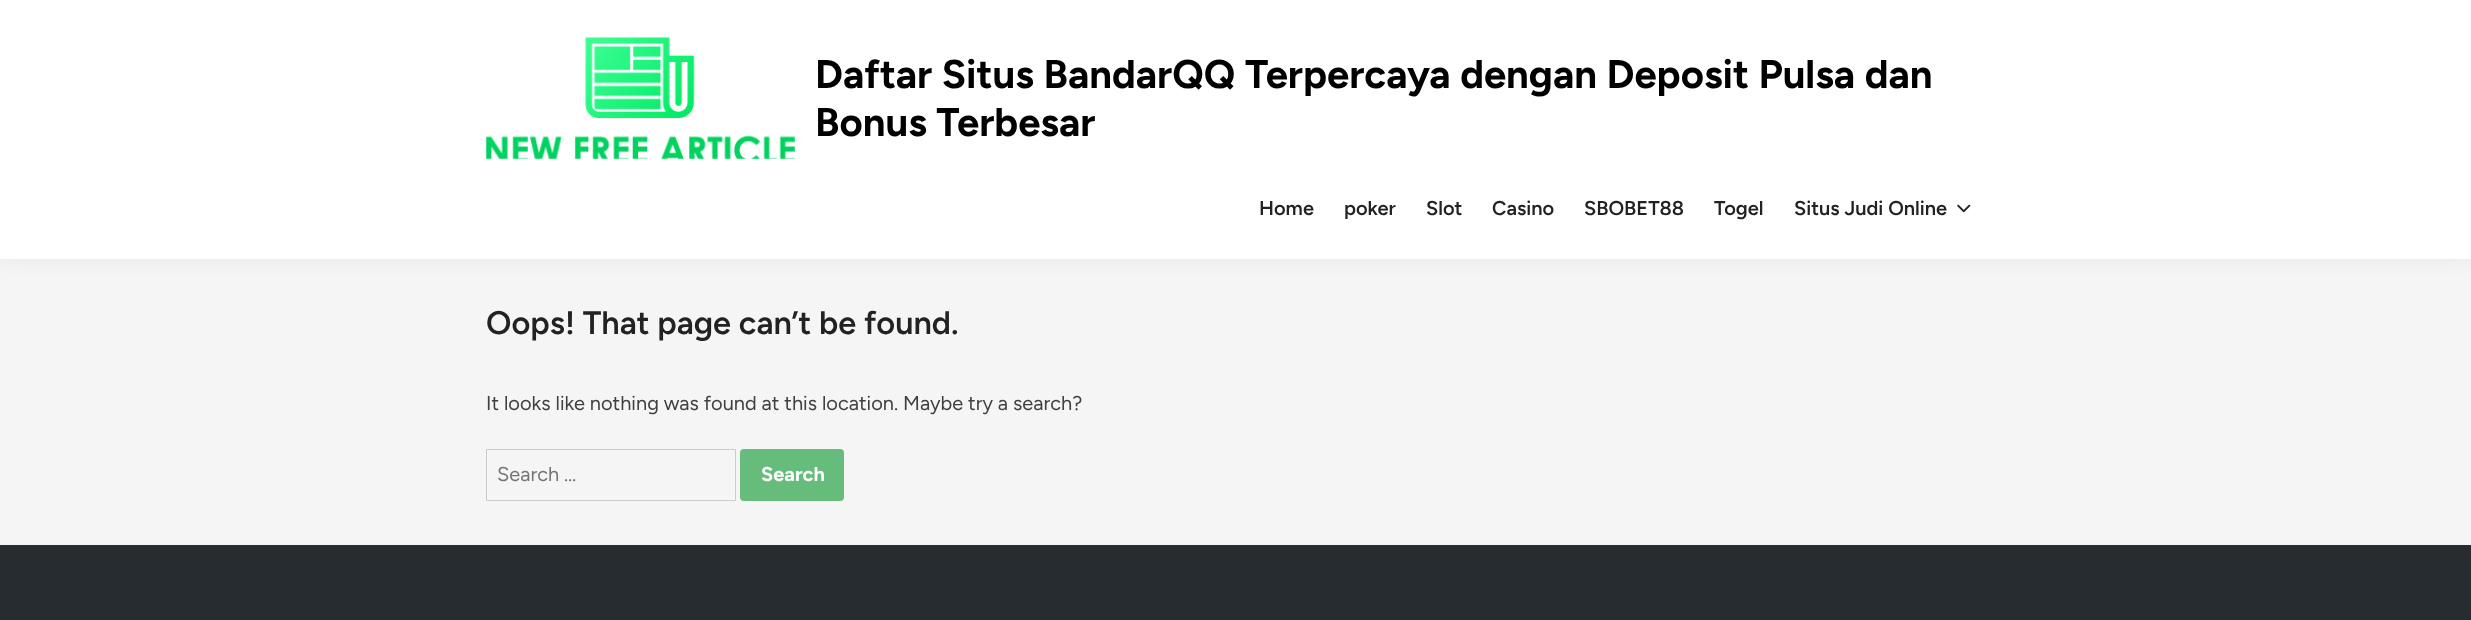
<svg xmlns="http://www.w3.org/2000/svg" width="2471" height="620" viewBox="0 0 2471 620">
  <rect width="100%" height="100%" fill="#f5f5f5"/>
  <path d="M0 0h2471v259H0z" fill="#0000000f" filter="blur(9.5px)"/>
  <path d="M0 0h2471v259H0z" fill="#fff"/>
  <image x="486" y="37" width="309" height="122" href="img/1.png"/>
  <image x="1957" y="204" width="14" height="9" href="img/2.png"/>
  <path d="M486.5 449.5h249v51H486.5z" fill="none" stroke="#ccc"/>
  <rect x="740" y="449" width="104" height="52" rx="4" fill="#65bc7b"/>
  <path d="M0 545h2471v75H0z" fill="#272c30"/>
  <g font-family="Figtree" font-size="40" font-weight="bold" fill="#000">
    <text x="815" y="88">Daftar Situs BandarQQ Terpercaya dengan Deposit Pulsa dan</text>
    <text x="815" y="136">Bonus Terbesar</text>
  </g>
  <g font-family="Figtree" font-size="20" font-weight="600" fill="#222">
    <text x="1259" y="215">Home</text>
    <text x="1344" y="215">poker</text>
    <text x="1426" y="215">Slot</text>
    <text x="1492" y="215">Casino</text>
    <text x="1584" y="215">SBOBET88</text>
    <text x="1714" y="215">Togel</text>
    <text x="1794" y="215">Situs Judi Online</text>
  </g>
  <text x="486" y="334" font-family="Figtree" font-size="32.5" font-weight="600" fill="#222">Oops! That page can’t be found.</text>
  <text x="486" y="410" font-family="Figtree" font-size="20" fill="#404040">It looks like nothing was found at this location. Maybe try a search?</text>
  <text x="497" y="481" font-family="Figtree" font-size="20" fill="#757575">Search …</text>
  <text x="761" y="481" font-family="Figtree" font-size="20" font-weight="bold" fill="#fff">Search</text>
</svg>
